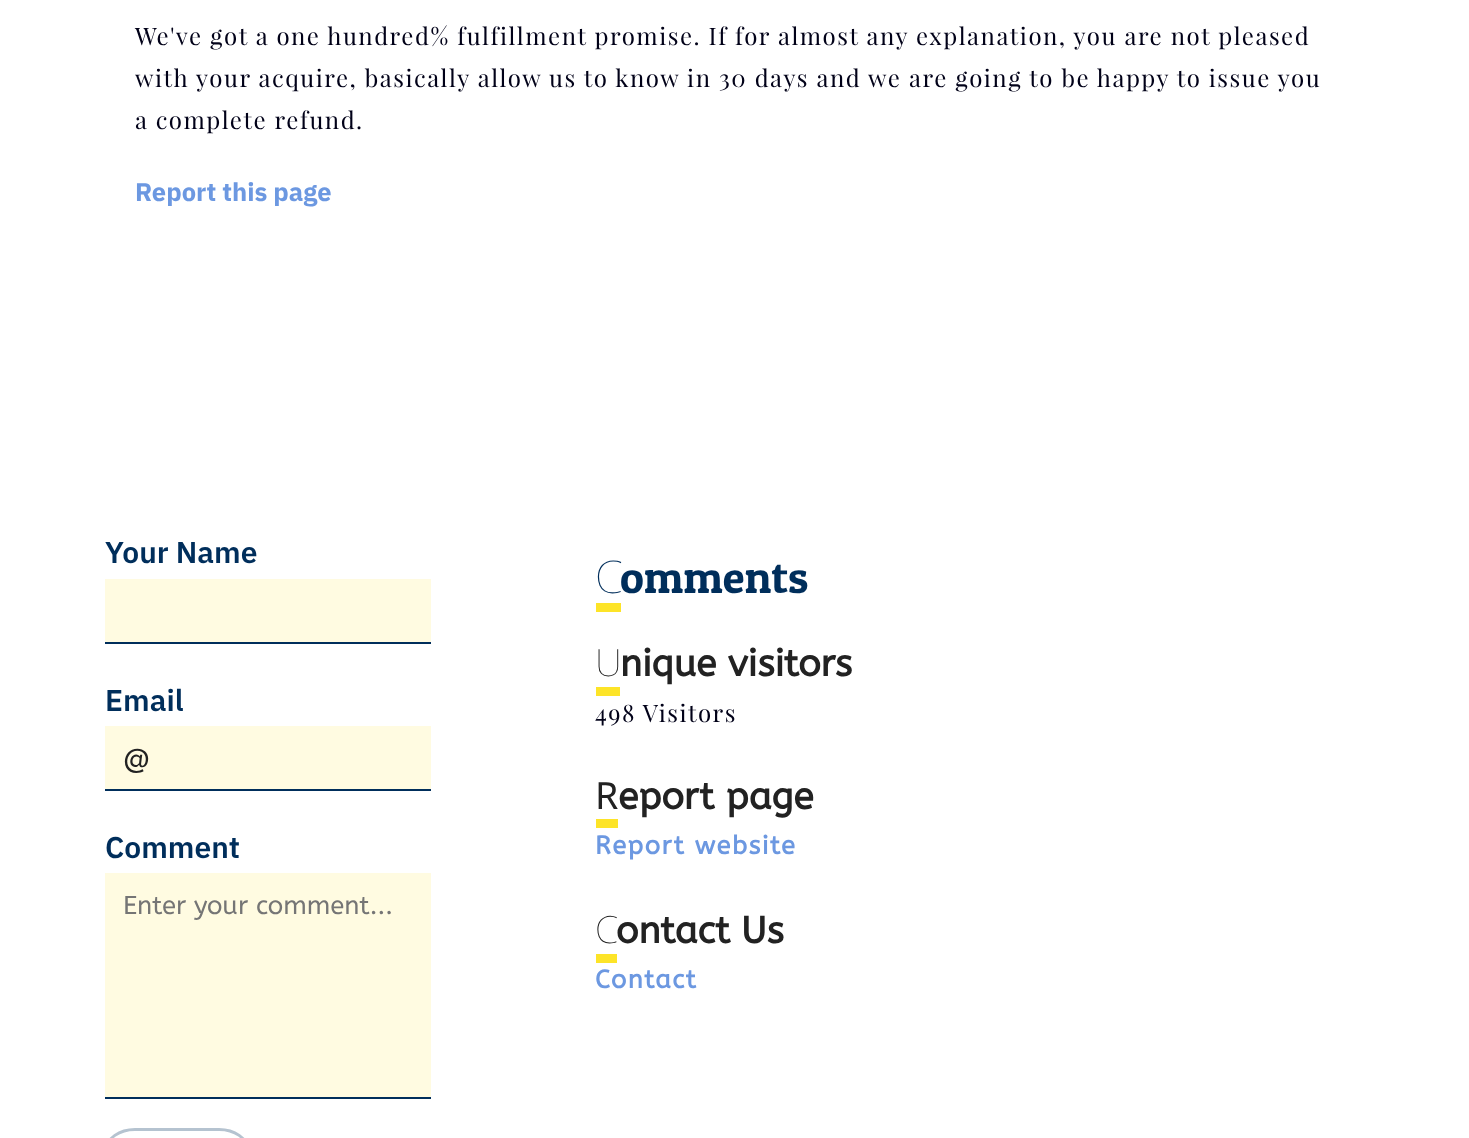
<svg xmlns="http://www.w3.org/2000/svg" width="1469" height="1138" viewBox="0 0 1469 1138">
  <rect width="100%" height="100%" fill="#fff"/>
  <path d="M105 579h326v63H105z" fill="#fffbe1"/>
  <path d="M105 642h326v2H105z" fill="#002e5b"/>
  <path d="M105 726h326v63H105z" fill="#fffbe1"/>
  <path d="M105 789h326v2H105z" fill="#002e5b"/>
  <path d="M105 873h326v224H105z" fill="#fffbe1"/>
  <path d="M105 1097h326v2H105z" fill="#002e5b"/>
  <rect x="106.5" y="1129.5" width="141" height="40" rx="28.5" fill="none" stroke="#b5c3d0" stroke-width="3"/>
  <path d="M596 603h25v9H596z" fill="#fde428"/>
  <path d="M596 687h24v9H596z" fill="#fde428"/>
  <path d="M596 819h22v9H596z" fill="#fde428"/>
  <path d="M596 954h21v9H596z" fill="#fde428"/>
  <g font-family="Playfair Display" font-size="24" letter-spacing="1.5" fill="#010118">
    <text x="135" y="45">We've got a one hundred% fulfillment promise. If for almost any explanation, you are not pleased</text>
    <text x="135" y="87">with your acquire, basically allow us to know in 30 days and we are going to be happy to issue you</text>
    <text x="135" y="129">a complete refund.</text>
  </g>
  <text x="135" y="201" font-family="IBM Plex Sans" font-size="25.5" font-weight="bold" fill="#6c98e1">Report this page</text>
  <g font-family="IBM Plex Sans" font-size="30" font-weight="600" fill="#002e5b">
    <text x="105" y="563">Your Name</text>
    <text x="105" y="711">Email</text>
  </g>
  <text x="123" y="767" font-family="ABeeZee" font-size="25.75" fill="#222">@</text>
  <text x="105" y="858" font-family="IBM Plex Sans" font-size="30" font-weight="600" fill="#002e5b">Comment</text>
  <text x="123" y="914" font-family="ABeeZee" font-size="25.75" fill="#757575">Enter your comment...</text>
  <text x="595" y="593" font-family="Noto Sans" font-size="45" font-weight="100" fill="#002e5b">C</text>
  <text x="620" y="593" font-family="Patua One" font-size="45" fill="#002e5b">omments</text>
  <text x="595" y="676" font-family="Noto Sans" font-size="37.5" font-weight="100" fill="#222">U</text>
  <text x="620" y="676" font-family="ABeeZee" font-size="37.5" font-weight="bold" fill="#222">nique visitors</text>
  <text x="595" y="722" font-family="Playfair Display" font-size="24" letter-spacing="1.5" fill="#010118">498 Visitors</text>
  <text x="595" y="809" font-family="Noto Sans" font-size="37.5" fill="#222">R</text>
  <text x="618" y="809" font-family="ABeeZee" font-size="37.5" font-weight="bold" fill="#222">eport page</text>
  <text x="595" y="854" font-family="ABeeZee" font-size="25.5" font-weight="bold" letter-spacing="1.5" fill="#6c98e1">Report website</text>
  <text x="595" y="943" font-family="Noto Sans" font-size="37.5" font-weight="100" fill="#222">C</text>
  <text x="616" y="943" font-family="ABeeZee" font-size="37.5" font-weight="bold" fill="#222">ontact Us</text>
  <text x="595" y="988" font-family="ABeeZee" font-size="25.5" font-weight="bold" letter-spacing="1.5" fill="#6c98e1">Contact</text>
</svg>
